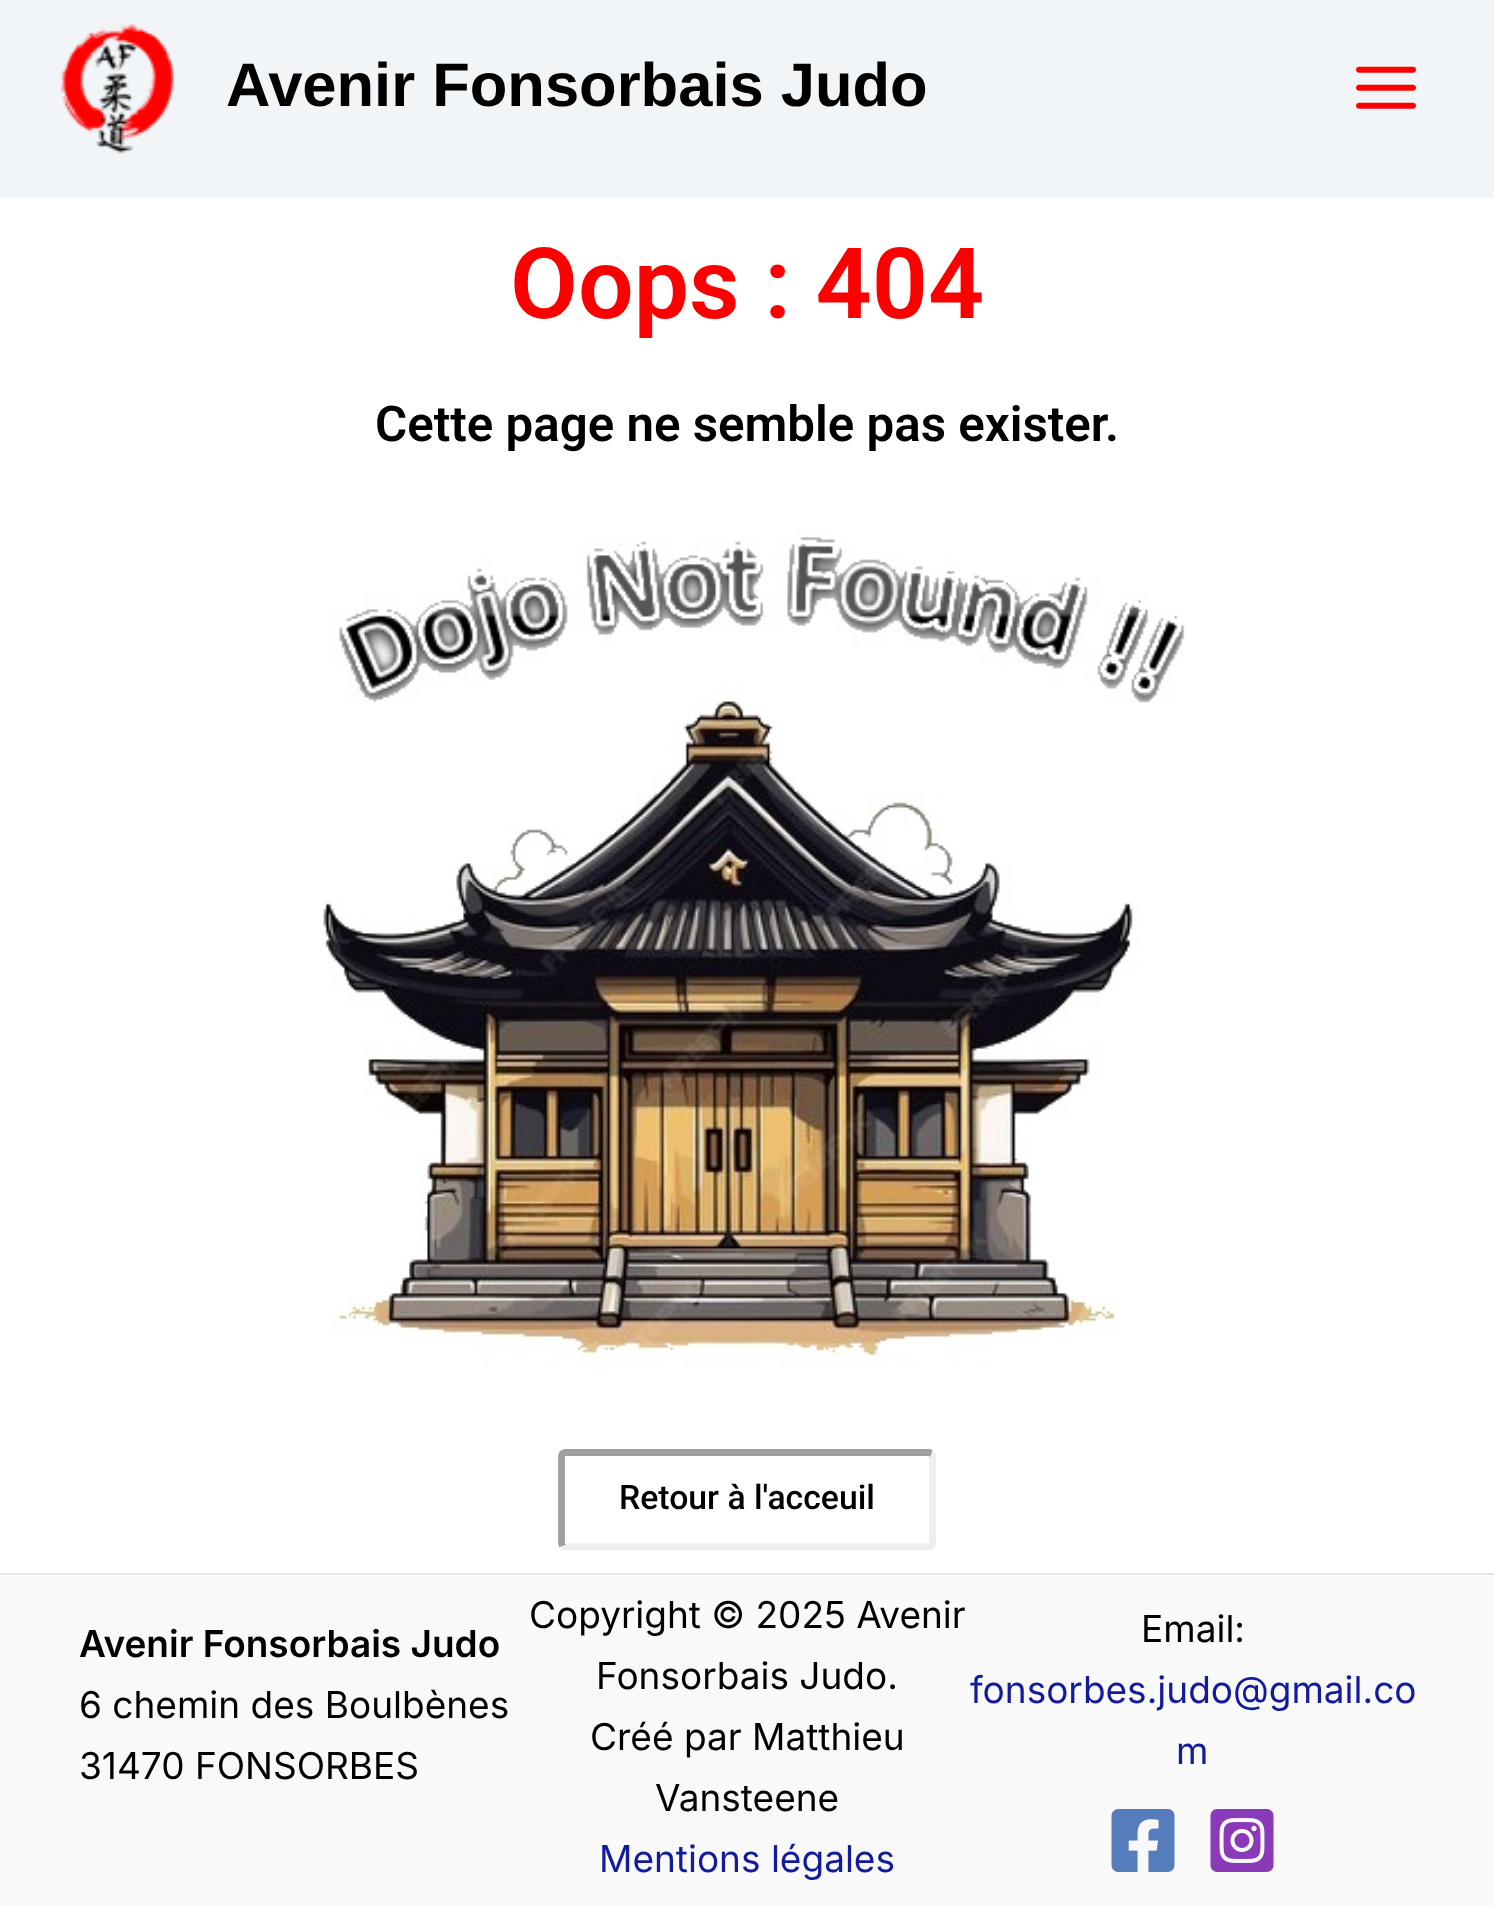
<svg xmlns="http://www.w3.org/2000/svg" width="1494" height="1906" viewBox="0 0 1494 1906">
  <rect width="100%" height="100%" fill="#fff"/>
  <path d="M0 0h1494v198H0z" fill="#f2f5f7"/>
  <image x="60" y="24" width="114" height="130" href="img/1.png"/>
  <image x="1356" y="66" width="60" height="43" href="img/2.png"/>
  <image x="320" y="531" width="865" height="838" href="img/3.png"/>
  <path d="M931.5 1453.5L932.5 1456V1543.5L931.5 1546L929 1547H565L562.5 1546" fill="none" stroke="#eee" stroke-width="6.8"/>
  <path d="M562.5 1546L561.5 1543.5V1456L562.5 1453.5L565 1452.5H929L931.5 1453.5" fill="none" stroke="#9f9f9f" stroke-width="6.8"/>
  <path d="M0 1575h1494v331H0z" fill="#f9f9f9"/>
  <path d="M0 1573h1494v2H0z" fill="#e6e6e6"/>
  <image x="1111" y="1809" width="64" height="63" href="img/4.png"/>
  <image x="1210" y="1809" width="64" height="63" href="img/5.png"/>
  <text x="226" y="106" font-family="Liberation Sans" font-size="61.5" font-weight="bold" fill="#000">Avenir Fonsorbais Judo</text>
  <text x="510" y="318" font-family="Roboto" font-size="98.5" font-weight="600" fill="#fc0000">Oops : 404</text>
  <text x="375" y="441" font-family="Roboto" font-size="49.25" font-weight="600" fill="#000">Cette page ne semble pas exister.</text>
  <text x="619" y="1509" font-family="Roboto" font-size="33.75" font-weight="500" fill="#000">Retour à l'acceuil</text>
  <text x="79" y="1657" font-family="Inter" font-size="37" font-weight="600" fill="#000">Avenir Fonsorbais Judo</text>
  <g font-family="Inter" font-size="37" fill="#000">
    <text x="79" y="1718">6 chemin des Boulbènes</text>
    <text x="79" y="1779">31470 FONSORBES</text>
    <text x="529" y="1628">Copyright © 2025 Avenir</text>
    <text x="596" y="1689">Fonsorbais Judo.</text>
    <text x="590" y="1750">Créé par Matthieu</text>
    <text x="655" y="1811">Vansteene</text>
  </g>
  <text x="599" y="1872" font-family="Inter" font-size="37" fill="#121b9b">Mentions légales</text>
  <text x="1141" y="1642" font-family="Inter" font-size="37" fill="#000">Email:</text>
  <g font-family="Inter" font-size="37" fill="#121b9b">
    <text x="970" y="1703">fonsorbes.judo@gmail.co</text>
    <text x="1176" y="1764">m</text>
  </g>
</svg>
